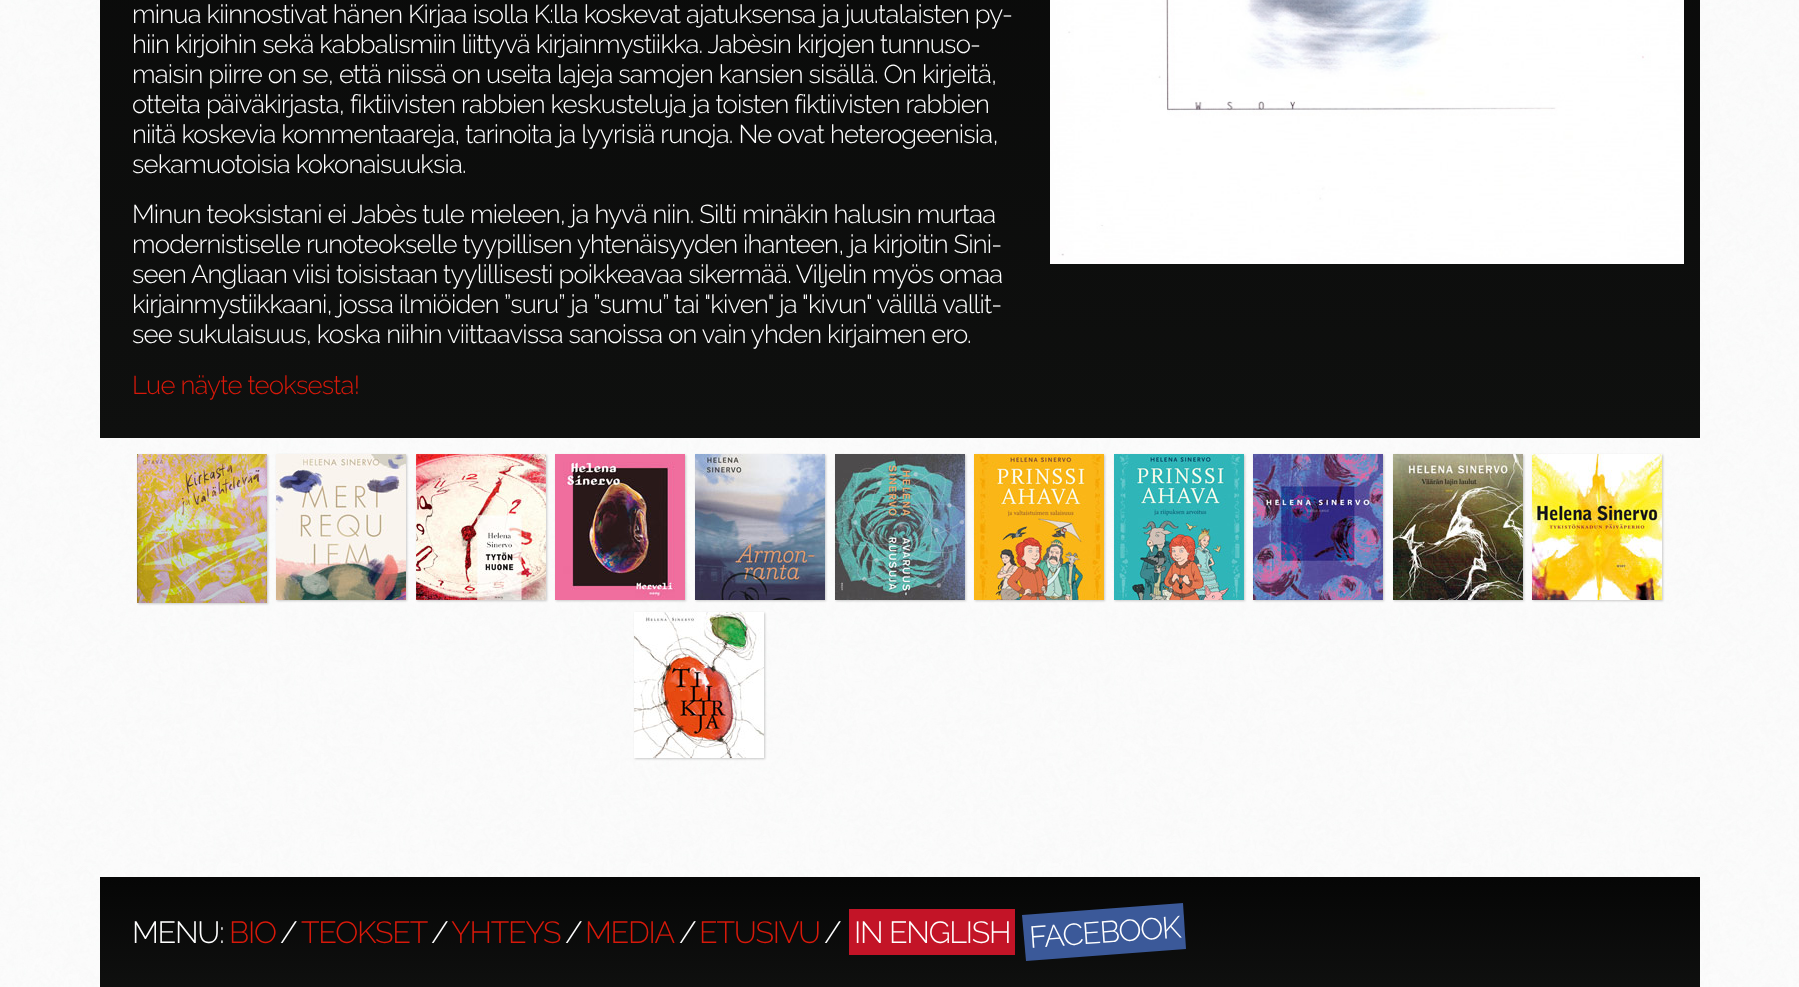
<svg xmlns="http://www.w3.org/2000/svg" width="1799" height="987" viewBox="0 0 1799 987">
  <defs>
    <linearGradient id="g1" gradientUnits="userSpaceOnUse" x1="900" y1="-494" x2="900" y2="438"><stop offset="0" stop-color="#060606"/><stop offset="1" stop-color="#0f100f"/></linearGradient>
    <linearGradient id="g2" gradientUnits="userSpaceOnUse" x1="900" y1="877" x2="900" y2="987"><stop offset="0" stop-color="#060606"/><stop offset="1" stop-color="#0f100f"/></linearGradient>
  </defs>
  <rect width="100%" height="100%" fill="#fff"/>
  <image x="0" y="0" width="1799" height="987" href="img/1.png"/>
  <path d="M100 0h1600v438H100z" fill="url(#g1)"/>
  <image x="1050" y="0" width="634" height="264" href="img/2.png"/>
  <path d="M138 455h130v149H138z" fill="#00000033" filter="blur(1px)"/>
  <image x="137" y="454" width="130" height="149" href="img/3.png"/>
  <path d="M277 455h130v146H277z" fill="#00000033" filter="blur(1px)"/>
  <image x="276" y="454" width="130" height="146" href="img/4.png"/>
  <path d="M417 455h130v146H417z" fill="#00000033" filter="blur(1px)"/>
  <image x="416" y="454" width="130" height="146" href="img/5.png"/>
  <path d="M556 455h130v146H556z" fill="#00000033" filter="blur(1px)"/>
  <image x="555" y="454" width="130" height="146" href="img/6.png"/>
  <path d="M696 455h130v146H696z" fill="#00000033" filter="blur(1px)"/>
  <image x="695" y="454" width="130" height="146" href="img/7.png"/>
  <path d="M836 455h130v146H836z" fill="#00000033" filter="blur(1px)"/>
  <image x="835" y="454" width="130" height="146" href="img/8.png"/>
  <path d="M975 455h130v146H975z" fill="#00000033" filter="blur(1px)"/>
  <image x="974" y="454" width="130" height="146" href="img/9.png"/>
  <path d="M1115 455h130v146H1115z" fill="#00000033" filter="blur(1px)"/>
  <image x="1114" y="454" width="130" height="146" href="img/10.png"/>
  <path d="M1254 455h130v146H1254z" fill="#00000033" filter="blur(1px)"/>
  <image x="1253" y="454" width="130" height="146" href="img/11.png"/>
  <path d="M1394 455h130v146H1394z" fill="#00000033" filter="blur(1px)"/>
  <image x="1393" y="454" width="130" height="146" href="img/12.png"/>
  <path d="M1533 455h130v146H1533z" fill="#00000033" filter="blur(1px)"/>
  <image x="1532" y="454" width="130" height="146" href="img/13.png"/>
  <path d="M635 613h130v146H635z" fill="#00000033" filter="blur(1px)"/>
  <image x="634" y="612" width="130" height="146" href="img/14.png"/>
  <path d="M100 877h1600v110H100z" fill="url(#g2)"/>
  <path d="M849 909h166v46H849z" fill="#c31427"/>
  <path d="M1022 915L1183 903L1186 949L1026 961Z" fill="#3b5999"/>
  <g font-family="Raleway" font-size="25.75" font-weight="300" letter-spacing="-0.8" fill="#fff">
    <text x="132" y="23">minua kiinnostivat hänen Kirjaa isolla K:lla koskevat ajatuksensa ja juutalaisten py-</text>
    <text x="132" y="53">hiin kirjoihin sekä kabbalismiin liittyvä kirjainmystiikka. Jabèsin kirjojen tunnuso-</text>
    <text x="132" y="83">maisin piirre on se, että niissä on useita lajeja samojen kansien sisällä. On kirjeitä,</text>
    <text x="132" y="113">otteita päiväkirjasta, fiktiivisten rabbien keskusteluja ja toisten fiktiivisten rabbien</text>
    <text x="132" y="143">niitä koskevia kommentaareja, tarinoita ja lyyrisiä runoja. Ne ovat heterogeenisia,</text>
    <text x="132" y="173">sekamuotoisia kokonaisuuksia.</text>
    <text x="132" y="223">Minun teoksistani ei Jabès tule mieleen, ja hyvä niin. Silti minäkin halusin murtaa</text>
    <text x="132" y="253">modernistiselle runoteokselle tyypillisen yhtenäisyyden ihanteen, ja kirjoitin Sini-</text>
    <text x="132" y="283">seen Angliaan viisi toisistaan tyylillisesti poikkeavaa sikermää. Viljelin myös omaa</text>
    <text x="132" y="313">kirjainmystiikkaani, jossa ilmiöiden ”suru” ja ”sumu” tai "kiven" ja "kivun" välillä vallit-</text>
    <text x="132" y="343">see sukulaisuus, koska niihin viittaavissa sanoissa on vain yhden kirjaimen ero.</text>
  </g>
  <text x="132" y="394" font-family="Raleway" font-size="25.75" font-weight="300" letter-spacing="-0.8" fill="#d7190a">Lue näyte teoksesta!</text>
  <text x="132" y="943" font-family="Raleway" font-size="30.5" font-weight="300" letter-spacing="-1.25" fill="#fff">MENU:</text>
  <text x="229" y="943" font-family="Raleway" font-size="30.5" font-weight="300" letter-spacing="-1.25" fill="#d7190a">BIO</text>
  <text x="280" y="943" font-family="Raleway" font-size="30.5" font-weight="300" letter-spacing="-1.25" fill="#fff">/</text>
  <text x="301" y="943" font-family="Raleway" font-size="30.5" font-weight="300" letter-spacing="-1.25" fill="#d7190a">TEOKSET</text>
  <text x="431" y="943" font-family="Raleway" font-size="30.5" font-weight="300" letter-spacing="-1.25" fill="#fff">/</text>
  <text x="451" y="943" font-family="Raleway" font-size="30.5" font-weight="300" letter-spacing="-1.25" fill="#d7190a">YHTEYS</text>
  <text x="565" y="943" font-family="Raleway" font-size="30.5" font-weight="300" letter-spacing="-1.25" fill="#fff">/</text>
  <text x="585" y="943" font-family="Raleway" font-size="30.5" font-weight="300" letter-spacing="-1.25" fill="#d7190a">MEDIA</text>
  <text x="679" y="943" font-family="Raleway" font-size="30.5" font-weight="300" letter-spacing="-1.25" fill="#fff">/</text>
  <text x="699" y="943" font-family="Raleway" font-size="30.5" font-weight="300" letter-spacing="-1.25" fill="#d7190a">ETUSIVU</text>
  <g font-family="Raleway" font-size="30.5" font-weight="300" letter-spacing="-1.25" fill="#fff">
    <text x="824" y="943">/</text>
    <text x="854" y="943">IN ENGLISH</text>
    <text x="1030" y="948" transform="rotate(-4 1030 948)">FACEBOOK</text>
  </g>
</svg>
